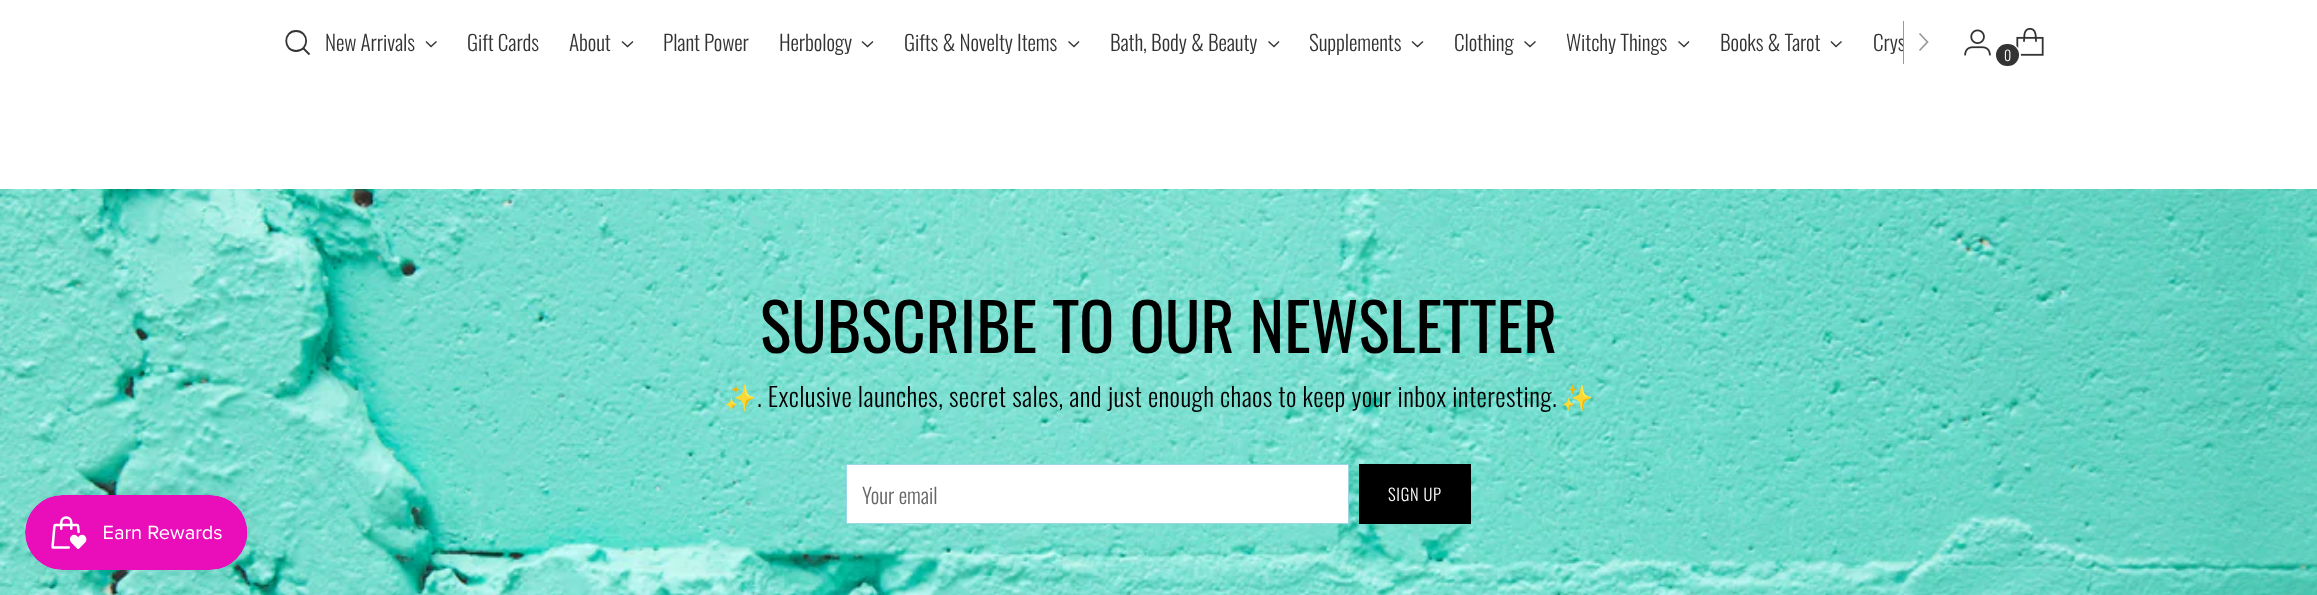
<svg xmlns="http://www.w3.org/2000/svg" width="2317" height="595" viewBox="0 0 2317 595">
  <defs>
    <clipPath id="clip1"><path d="M1359 464h112v60H1359z"/></clipPath>
    <clipPath id="clip2"><path d="M324 0h1579v85H324z"/></clipPath>
  </defs>
  <rect width="100%" height="100%" fill="#fff"/>
  <path d="M296 51C309.5 51 309.5 31 296 31C283 31 283 51 296 51Z" fill="none" stroke="#333" stroke-width="1.8" stroke-linecap="round"/>
  <path d="M303.5 48.5L309.5 54.5" fill="none" stroke="#333" stroke-width="1.8"/>
  <path d="M426 41.5L431 46.5L436.5 41.5" fill="none" stroke="#333" stroke-width="1.4"/>
  <path d="M622 41.5L627.5 46.5L633 41.5" fill="none" stroke="#333" stroke-width="1.4"/>
  <path d="M862 41.5L867.5 46.5L873 41.5" fill="none" stroke="#333" stroke-width="1.4"/>
  <path d="M1068.5 41.5L1074 46.5L1079 41.5" fill="none" stroke="#333" stroke-width="1.4"/>
  <path d="M1268.5 41.5L1274 46.5L1279 41.5" fill="none" stroke="#333" stroke-width="1.4"/>
  <path d="M1412 41.5L1417.5 46.5L1423 41.5" fill="none" stroke="#333" stroke-width="1.4"/>
  <path d="M1524.5 41.5L1530 46.5L1535.5 41.5" fill="none" stroke="#333" stroke-width="1.4"/>
  <path d="M1678.5 41.5L1684 46.5L1689 41.5" fill="none" stroke="#333" stroke-width="1.4"/>
  <path d="M1831 41.5L1836 46.5L1841.5 41.5" fill="none" stroke="#333" stroke-width="1.4"/>
  <path d="M1903 21h1v43H1903z" fill="#999"/>
  <path d="M1919.5 50.5L1927.5 42L1919.5 33.5" fill="none" stroke="#999" stroke-width="1.7"/>
  <image x="1964" y="29" width="27" height="27" href="img/1.png"/>
  <image x="2016" y="28" width="28" height="28" href="img/2.png"/>
  <circle cx="2008" cy="56" r="12" fill="none" stroke="#fff" stroke-width="2"/>
  <rect x="1996" y="44" width="23" height="22" rx="11" fill="#333"/>
  <image x="0" y="189" width="2317" height="406" href="img/3.png"/>
  <path d="M846.5 464.5h502v59H846.5z" fill="#fff" stroke="#9ad6e5"/>
  <g clip-path="url(#clip1)">
    <path d="M1324 464H1471L1506 524H1359Z" fill="#000"/>
  </g>
  <rect x="25" y="495" width="223" height="75" rx="37.5" fill="#0000000d" filter="blur(15.5px)"/>
  <image x="25" y="495" width="223" height="75" href="img/4.png"/>
  <g font-family="Oswald" font-size="21.25" font-weight="300" letter-spacing="-0.1" fill="#333">
    <text x="325" y="51">New Arrivals</text>
    <text x="467" y="51">Gift Cards</text>
    <text x="569" y="51">About</text>
    <text x="663" y="51">Plant Power</text>
    <text x="779" y="51">Herbology</text>
    <text x="904" y="51">Gifts &amp; Novelty Items</text>
    <text x="1110" y="51">Bath, Body &amp; Beauty</text>
    <text x="1309" y="51">Supplements</text>
    <text x="1454" y="51">Clothing</text>
    <text x="1566" y="51">Witchy Things</text>
    <text x="1720" y="51">Books &amp; Tarot</text>
  </g>
  <g clip-path="url(#clip2)">
    <text x="1873" y="51" font-family="Oswald" font-size="21.25" font-weight="300" letter-spacing="-0.1" fill="#333">Crys</text>
  </g>
  <text x="2004" y="61" font-family="Oswald" font-size="14" font-weight="300" fill="#fff">0</text>
  <text x="760" y="353" font-family="Oswald" font-size="65.6" fill="#000">SUBSCRIBE TO OUR NEWSLETTER</text>
  <text x="724" y="407" font-family="Noto Color Emoji" font-size="26" letter-spacing="0.4" fill="#000">✨</text>
  <text x="757" y="407" font-family="Oswald" font-size="26" font-weight="300" letter-spacing="0.4" fill="#000">. Exclusive launches, secret sales, and just enough chaos to keep your inbox interesting.</text>
  <text x="1561" y="407" font-family="Noto Color Emoji" font-size="26" letter-spacing="0.4" fill="#000">✨</text>
  <text x="862" y="504" font-family="Oswald" font-size="21.25" font-weight="300" fill="#666">Your email</text>
  <text x="1388" y="501" font-family="Oswald" font-size="16.5" font-weight="300" letter-spacing="0.75" fill="#fff">SIGN UP</text>
</svg>
